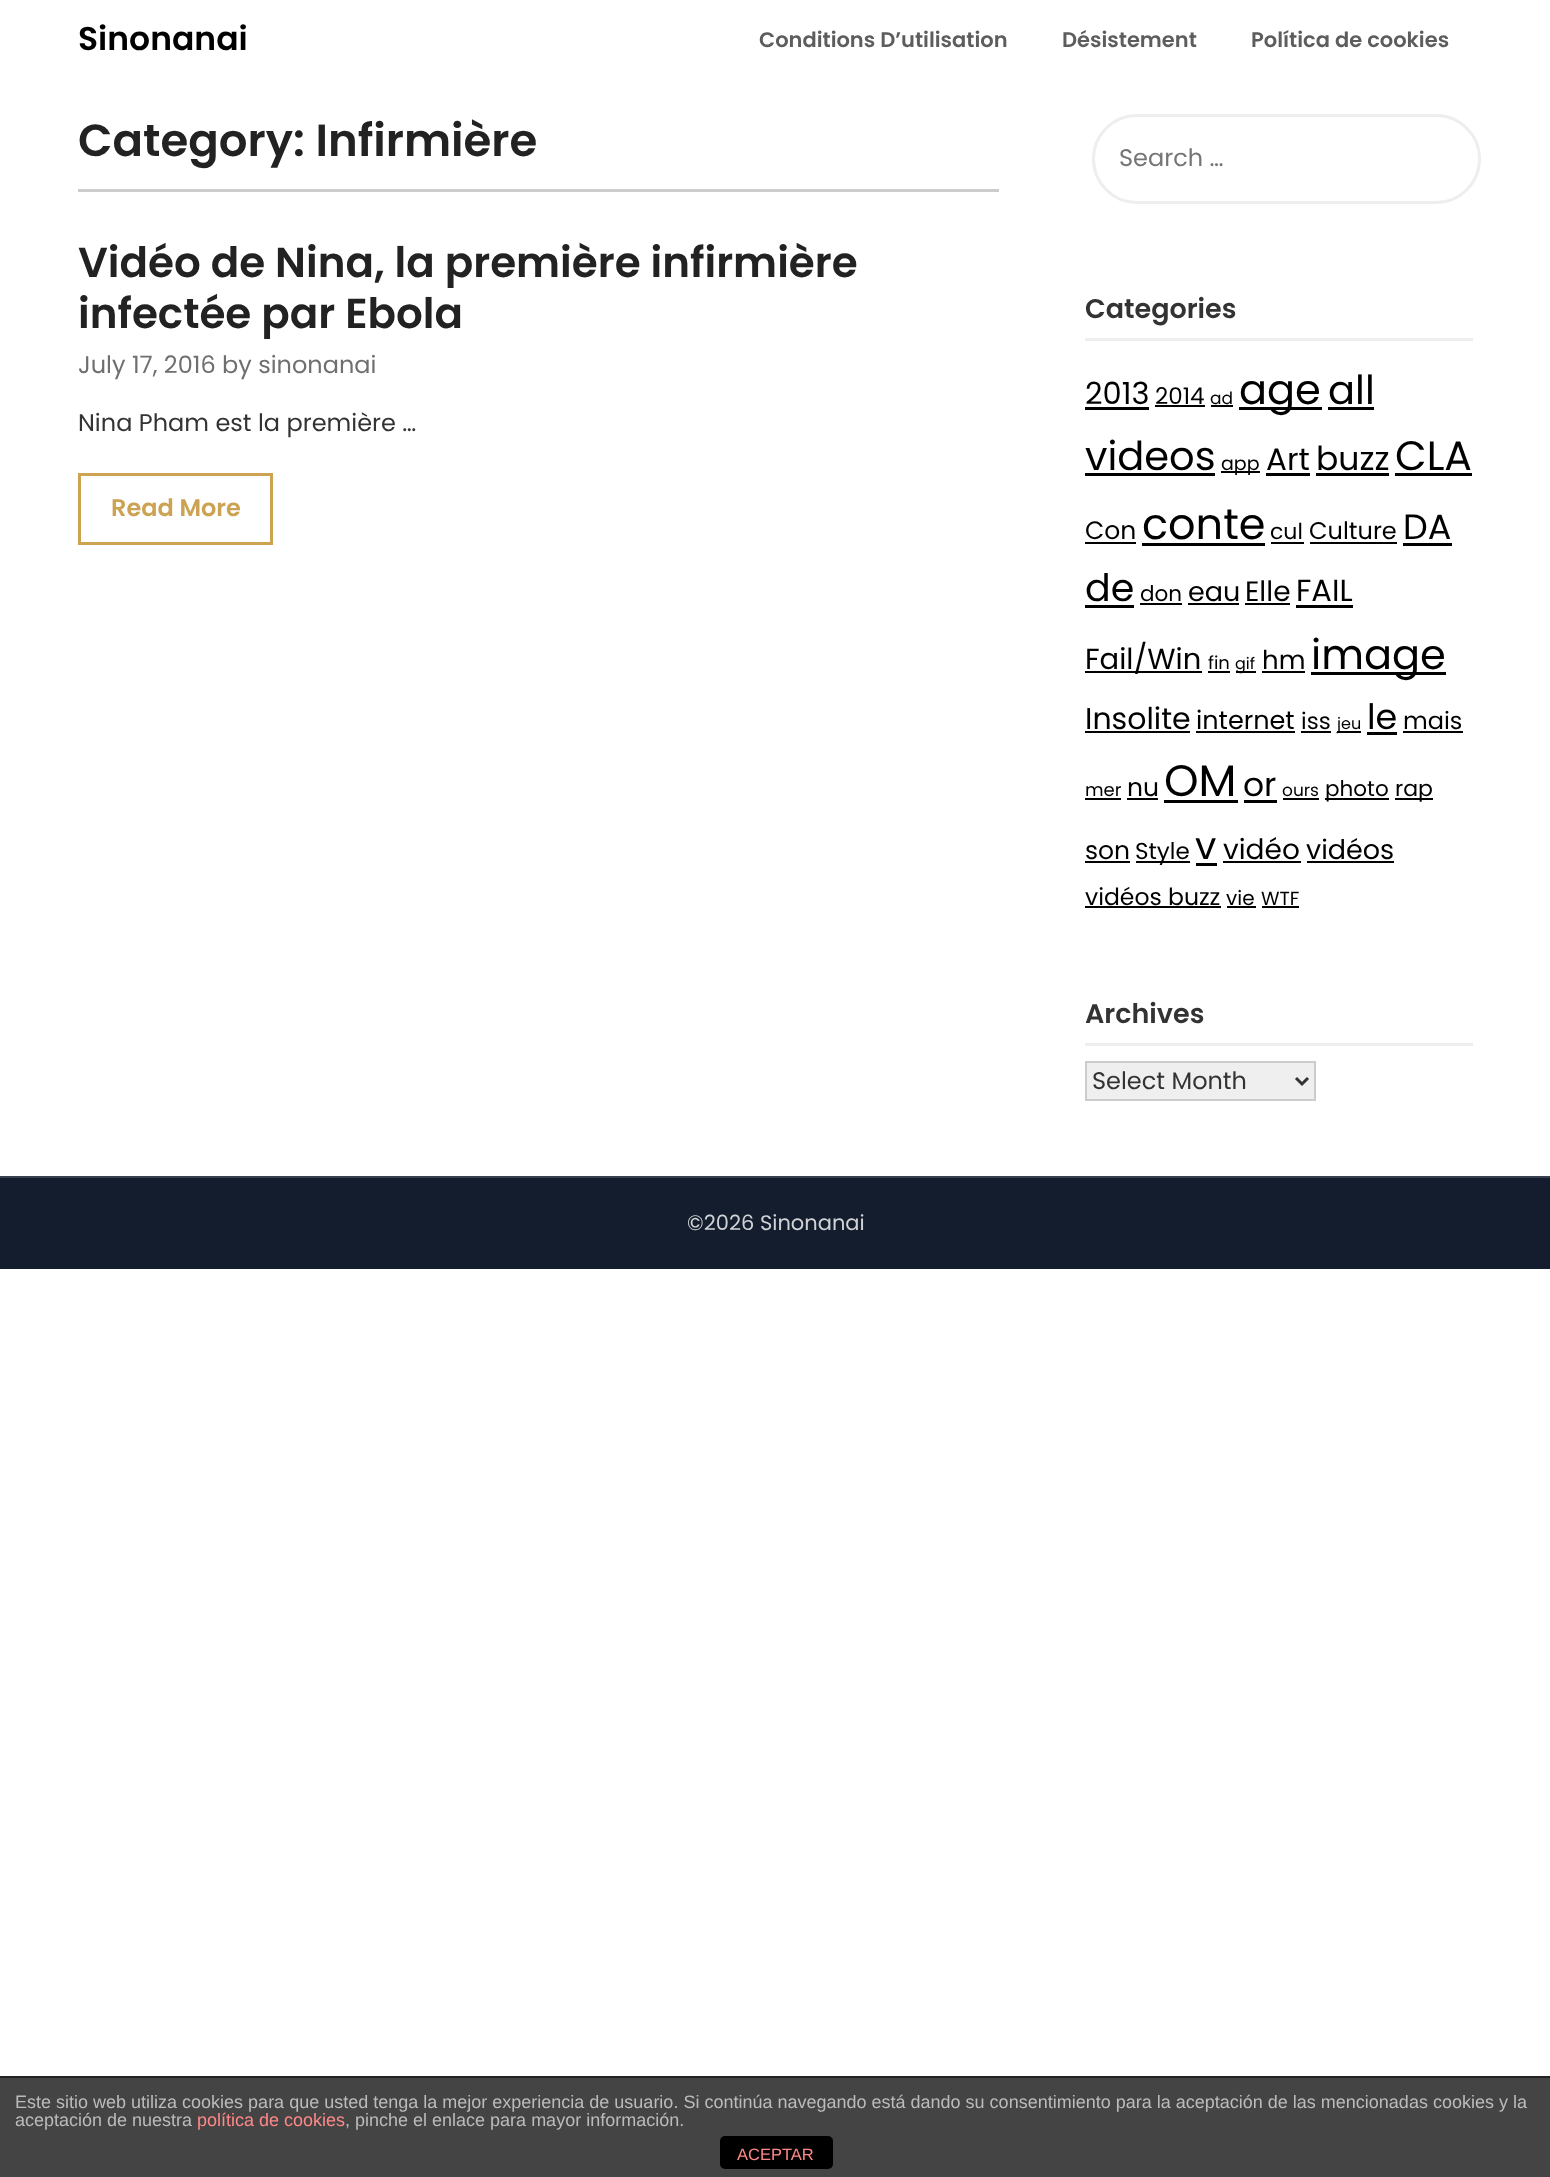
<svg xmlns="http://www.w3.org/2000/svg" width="1550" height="2177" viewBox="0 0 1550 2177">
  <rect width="100%" height="100%" fill="#fff"/>
  <path d="M78 189h921v3H78z" fill="#ccc"/>
  <path d="M79.5 474.5h192v69H79.5z" fill="none" stroke="#cca352" stroke-width="3"/>
  <rect x="1093.5" y="115.5" width="386" height="87" rx="43.5" fill="none" stroke="#eee" stroke-width="3"/>
  <path d="M1085 338h388v3H1085z" fill="#eee"/>
  <path d="M1085 407h64v3H1085z" fill="#000"/>
  <path d="M1155 405h50v2H1155z" fill="#000"/>
  <path d="M1211 405h22v2H1211z" fill="#000"/>
  <path d="M1239 407h83v3H1239z" fill="#000"/>
  <path d="M1328 407h46v3H1328z" fill="#000"/>
  <path d="M1085 473h130v3H1085z" fill="#000"/>
  <path d="M1221 471h39v2H1221z" fill="#000"/>
  <path d="M1266 473h44v3H1266z" fill="#000"/>
  <path d="M1316 473h73v3H1316z" fill="#000"/>
  <path d="M1395 473h77v3H1395z" fill="#000"/>
  <path d="M1085 542h51v2H1085z" fill="#000"/>
  <path d="M1142 543h123v3H1142z" fill="#000"/>
  <path d="M1271 542h33v2H1271z" fill="#000"/>
  <path d="M1310 542h87v2H1310z" fill="#000"/>
  <path d="M1403 543h49v3H1403z" fill="#000"/>
  <path d="M1085 605h49v3H1085z" fill="#000"/>
  <path d="M1140 603h42v2H1140z" fill="#000"/>
  <path d="M1188 603h51v2H1188z" fill="#000"/>
  <path d="M1245 603h45v2H1245z" fill="#000"/>
  <path d="M1296 605h57v3H1296z" fill="#000"/>
  <path d="M1085 671h117v2H1085z" fill="#000"/>
  <path d="M1208 671h22v2H1208z" fill="#000"/>
  <path d="M1236 671h20v2H1236z" fill="#000"/>
  <path d="M1262 671h43v2H1262z" fill="#000"/>
  <path d="M1311 672h135v3H1311z" fill="#000"/>
  <path d="M1085 731h105v2H1085z" fill="#000"/>
  <path d="M1196 731h99v2H1196z" fill="#000"/>
  <path d="M1301 731h30v2H1301z" fill="#000"/>
  <path d="M1337 731h24v2H1337z" fill="#000"/>
  <path d="M1367 732h30v3H1367z" fill="#000"/>
  <path d="M1403 731h60v2H1403z" fill="#000"/>
  <path d="M1085 798h36v2H1085z" fill="#000"/>
  <path d="M1127 798h31v2H1127z" fill="#000"/>
  <path d="M1164 800h74v3H1164z" fill="#000"/>
  <path d="M1244 800h33v3H1244z" fill="#000"/>
  <path d="M1283 798h36v2H1283z" fill="#000"/>
  <path d="M1325 798h64v2H1325z" fill="#000"/>
  <path d="M1395 798h38v2H1395z" fill="#000"/>
  <path d="M1085 861h45v2H1085z" fill="#000"/>
  <path d="M1136 861h54v2H1136z" fill="#000"/>
  <path d="M1196 863h21v3H1196z" fill="#000"/>
  <path d="M1223 861h78v2H1223z" fill="#000"/>
  <path d="M1307 861h87v2H1307z" fill="#000"/>
  <path d="M1085 906h136v2H1085z" fill="#000"/>
  <path d="M1227 906h29v2H1227z" fill="#000"/>
  <path d="M1262 906h37v2H1262z" fill="#000"/>
  <path d="M1085 1043h388v3H1085z" fill="#eee"/>
  <path d="M1086 1062h229v38H1086z" fill="#efefef" stroke="#ccc" stroke-width="2"/>
  <path d="M1296 1078L1302 1084L1308 1078" fill="none" stroke="#333" stroke-width="3"/>
  <path d="M0 1178h1550v91H0z" fill="#131d2d"/>
  <path d="M0 1176h1550v2H0z" fill="#39414f"/>
  <path d="M0 2078h1550v99H0z" fill="#444"/>
  <path d="M0 2076h1550v2H0z" fill="#222"/>
  <rect x="720" y="2136" width="113" height="33" rx="5" fill="#000"/>
  <text x="78" y="50" font-family="Poppins" font-size="33" font-weight="600" fill="#000">Sinonanai</text>
  <g font-family="Poppins" font-size="21" font-weight="600" fill="#5d5d5d">
    <text x="759" y="47">Conditions D’utilisation</text>
    <text x="1062" y="47">Désistement</text>
    <text x="1251" y="47">Política de cookies</text>
  </g>
  <text x="78" y="156" font-family="Poppins" font-size="45" font-weight="600" fill="#222">Category: Infirmière</text>
  <g font-family="Poppins" font-size="42" font-weight="600" fill="#222">
    <text x="78" y="277">Vidéo de Nina, la première infirmière</text>
    <text x="78" y="328">infectée par Ebola</text>
  </g>
  <text x="78" y="373" font-family="Poppins" font-size="24" fill="#6f6f6f">July 17, 2016 by sinonanai</text>
  <text x="78" y="431" font-family="Poppins" font-size="24" fill="#333">Nina Pham est la première …</text>
  <text x="111" y="516" font-family="Poppins" font-size="24" font-weight="600" fill="#cca352">Read More</text>
  <text x="1119" y="166" font-family="Poppins" font-size="24" fill="#757575">Search …</text>
  <text x="1085" y="318" font-family="Poppins" font-size="27" font-weight="600" fill="#333">Categories</text>
  <text x="1085" y="404" font-family="Poppins" font-size="30.5" fill="#000">2013</text>
  <text x="1155" y="404" font-family="Poppins" font-size="23" fill="#000">2014</text>
  <text x="1210" y="404" font-family="Poppins" font-size="17" fill="#000">ad</text>
  <text x="1239" y="404" font-family="Poppins" font-size="41.5" fill="#000">age</text>
  <g font-family="Poppins" font-size="40" fill="#000">
    <text x="1328" y="404">all</text>
    <text x="1085" y="470">videos</text>
  </g>
  <text x="1221" y="470" font-family="Poppins" font-size="19" fill="#000">app</text>
  <text x="1266" y="470" font-family="Poppins" font-size="31" fill="#000">Art</text>
  <text x="1316" y="470" font-family="Poppins" font-size="33" fill="#000">buzz</text>
  <text x="1395" y="470" font-family="Poppins" font-size="41" fill="#000">CLA</text>
  <text x="1085" y="539" font-family="Poppins" font-size="25" fill="#000">Con</text>
  <text x="1142" y="539" font-family="Poppins" font-size="43" fill="#000">conte</text>
  <text x="1270" y="539" font-family="Poppins" font-size="22" fill="#000">cul</text>
  <text x="1309" y="539" font-family="Poppins" font-size="24" fill="#000">Culture</text>
  <text x="1403" y="539" font-family="Poppins" font-size="35" fill="#000">DA</text>
  <text x="1085" y="601" font-family="Poppins" font-size="38" fill="#000">de</text>
  <text x="1140" y="601" font-family="Poppins" font-size="21.5" fill="#000">don</text>
  <text x="1188" y="601" font-family="Poppins" font-size="27" fill="#000">eau</text>
  <text x="1245" y="601" font-family="Poppins" font-size="28" fill="#000">Elle</text>
  <text x="1296" y="601" font-family="Poppins" font-size="30.5" fill="#000">FAIL</text>
  <text x="1085" y="669" font-family="Poppins" font-size="29" fill="#000">Fail/Win</text>
  <text x="1208" y="669" font-family="Poppins" font-size="18" fill="#000">fin</text>
  <text x="1235" y="669" font-family="Poppins" font-size="16" fill="#000">gif</text>
  <text x="1262" y="669" font-family="Poppins" font-size="26" fill="#000">hm</text>
  <text x="1311" y="669" font-family="Poppins" font-size="41.5" fill="#000">image</text>
  <text x="1085" y="729" font-family="Poppins" font-size="30" fill="#000">Insolite</text>
  <text x="1196" y="729" font-family="Poppins" font-size="25.5" fill="#000">internet</text>
  <text x="1301" y="729" font-family="Poppins" font-size="23" fill="#000">iss</text>
  <text x="1337" y="729" font-family="Poppins" font-size="16" fill="#000">jeu</text>
  <text x="1367" y="729" font-family="Poppins" font-size="35" fill="#000">le</text>
  <text x="1403" y="729" font-family="Poppins" font-size="24" fill="#000">mais</text>
  <text x="1085" y="796" font-family="Poppins" font-size="18" fill="#000">mer</text>
  <text x="1127" y="796" font-family="Poppins" font-size="25" fill="#000">nu</text>
  <text x="1164" y="796" font-family="Poppins" font-size="44" fill="#000">OM</text>
  <text x="1243" y="796" font-family="Poppins" font-size="33" fill="#000">or</text>
  <text x="1282" y="796" font-family="Poppins" font-size="17" fill="#000">ours</text>
  <text x="1325" y="796" font-family="Poppins" font-size="21.5" fill="#000">photo</text>
  <text x="1395" y="796" font-family="Poppins" font-size="22" fill="#000">rap</text>
  <text x="1085" y="859" font-family="Poppins" font-size="25" fill="#000">son</text>
  <text x="1135" y="859" font-family="Poppins" font-size="23" fill="#000">Style</text>
  <text x="1195" y="859" font-family="Poppins" font-size="38" fill="#000">v</text>
  <text x="1223" y="859" font-family="Poppins" font-size="28" fill="#000">vidéo</text>
  <text x="1306" y="859" font-family="Poppins" font-size="27" fill="#000">vidéos</text>
  <text x="1085" y="905" font-family="Poppins" font-size="23.5" fill="#000">vidéos buzz</text>
  <text x="1226" y="905" font-family="Poppins" font-size="20" fill="#000">vie</text>
  <text x="1261" y="905" font-family="Poppins" font-size="19" fill="#000">WTF</text>
  <text x="1085" y="1023" font-family="Poppins" font-size="27" font-weight="600" fill="#333">Archives</text>
  <text x="1092" y="1089" font-family="Poppins" font-size="24" fill="#333">Select Month</text>
  <text x="687" y="1230" font-family="Poppins" font-size="21" fill="#d0d2d5">©2026 Sinonanai</text>
  <g font-family="Liberation Sans" font-size="18" fill="#bbb">
    <text x="15" y="2108">Este sitio web utiliza cookies para que usted tenga la mejor experiencia de usuario. Si continúa navegando está dando su consentimiento para la aceptación de las mencionadas cookies y la</text>
    <text x="15" y="2126">aceptación de nuestra</text>
  </g>
  <text x="197" y="2126" font-family="Liberation Sans" font-size="18" fill="#f88">política de cookies</text>
  <text x="345" y="2126" font-family="Liberation Sans" font-size="18" fill="#bbb">, pinche el enlace para mayor información.</text>
  <text x="737" y="2160" font-family="Liberation Sans" font-size="16.5" fill="#f88">ACEPTAR</text>
</svg>
